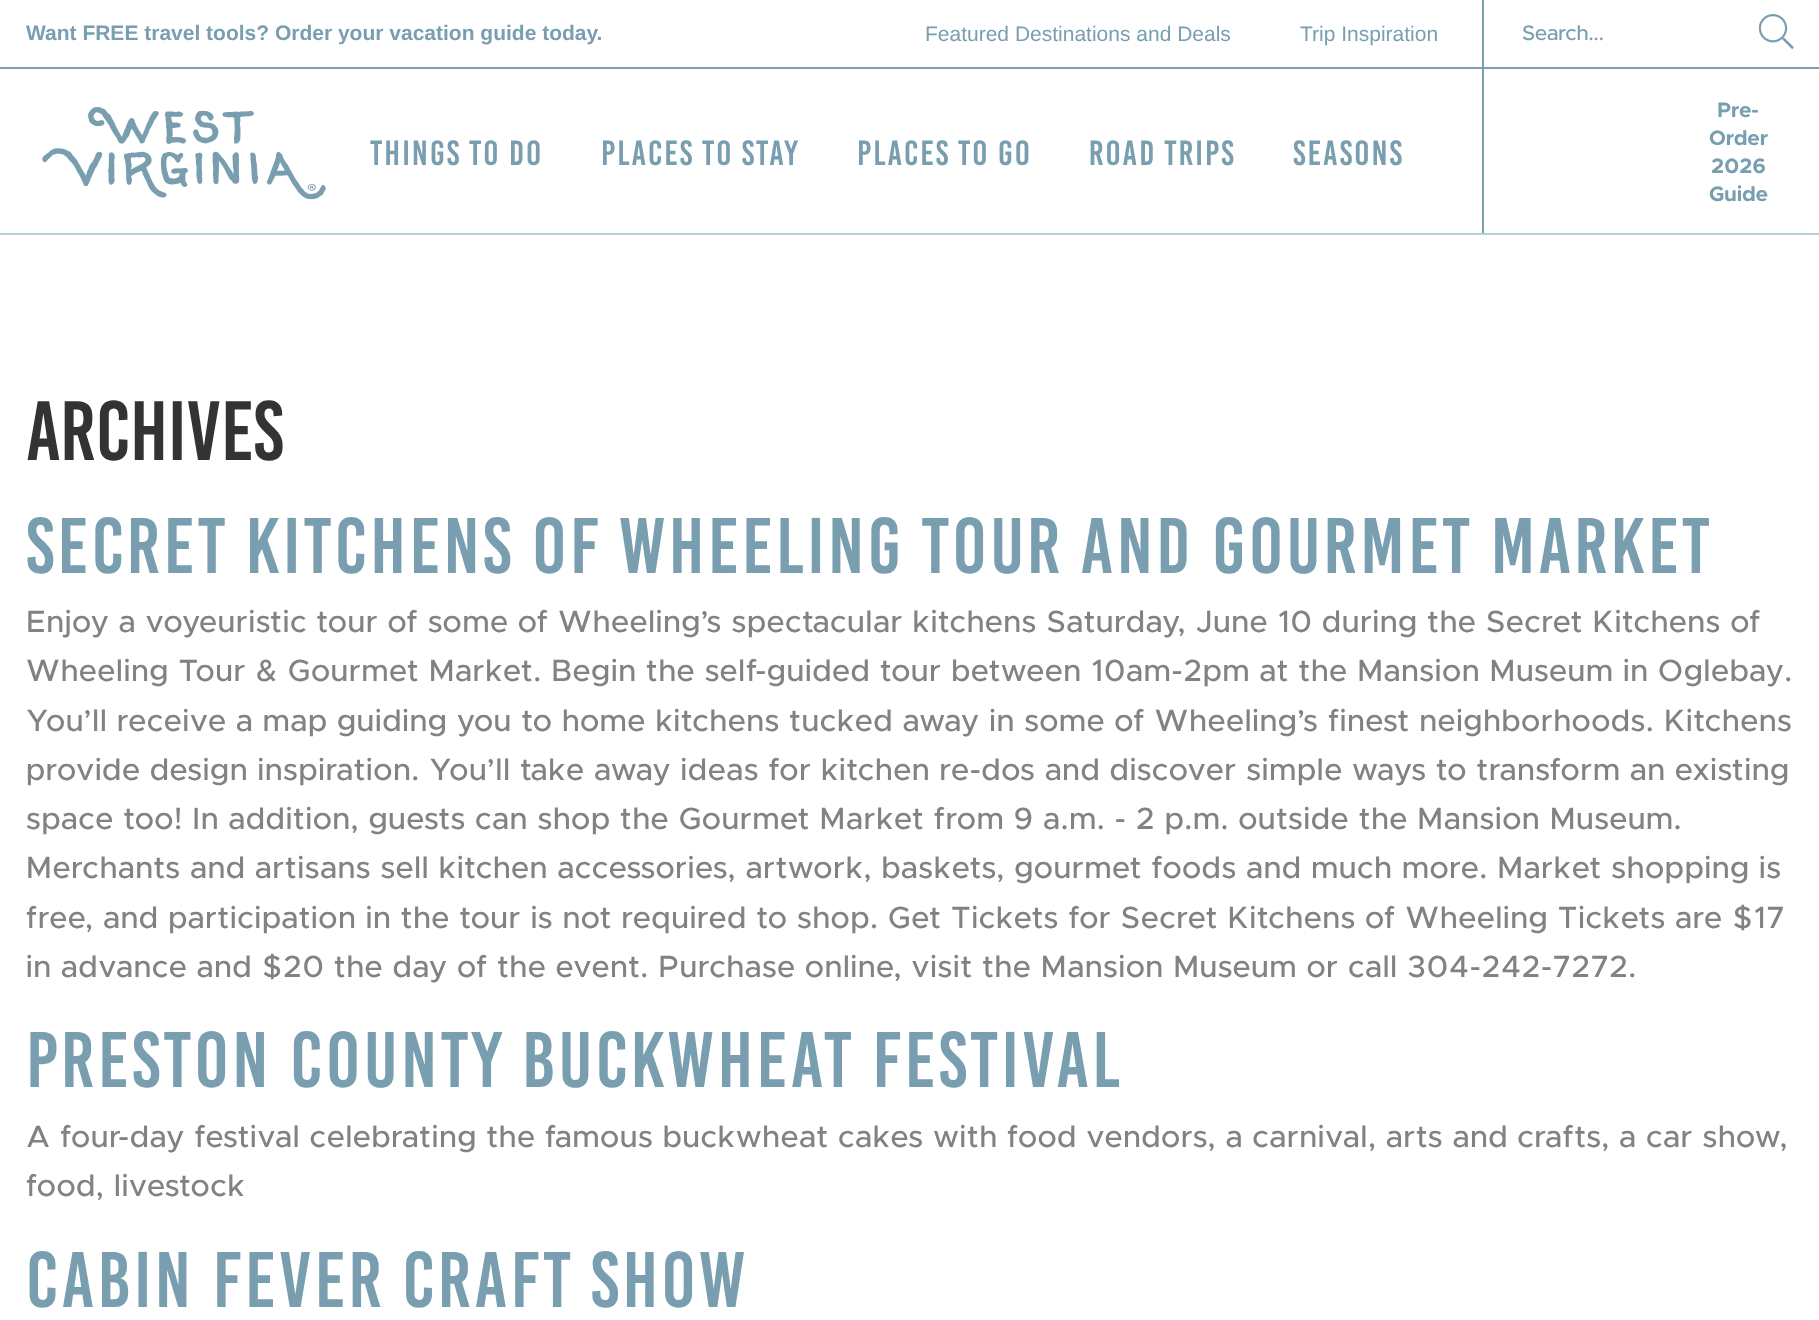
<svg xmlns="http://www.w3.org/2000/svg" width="1819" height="1320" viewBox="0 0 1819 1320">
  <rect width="100%" height="100%" fill="#fff"/>
  <path d="M0 233h1819v2H0z" fill="#b6cfdb"/>
  <path d="M0 67h1819v2H0z" fill="#789eb0"/>
  <path d="M1482 0h2v67H1482z" fill="#789eb0"/>
  <image x="1759" y="14" width="35" height="35" href="img/1.png"/>
  <image x="42" y="107" width="284" height="93" href="img/2.png"/>
  <path d="M1482 69h2v164H1482z" fill="#789eb0"/>
  <text x="26" y="40" font-family="Liberation Sans" font-size="21" font-weight="bold" fill="#789eb0">Want FREE travel tools? Order your vacation guide today.</text>
  <g font-family="Liberation Sans" font-size="21" fill="#789eb0">
    <text x="925" y="41">Featured Destinations and Deals</text>
    <text x="1300" y="41">Trip Inspiration</text>
  </g>
  <text x="1522" y="40" font-family="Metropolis" font-size="21" font-weight="500" fill="#789eb0">Search...</text>
  <g font-family="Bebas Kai" font-size="35" letter-spacing="2" fill="#789eb0">
    <text x="370" y="165">Things to Do</text>
    <text x="601" y="165">Places to Stay</text>
    <text x="857" y="165">Places to Go</text>
    <text x="1089" y="165">Road Trips</text>
    <text x="1293" y="165">Seasons</text>
  </g>
  <g font-family="Metropolis" font-size="21" font-weight="bold" fill="#789eb0">
    <text x="1717" y="117">Pre-</text>
    <text x="1709" y="145">Order</text>
    <text x="1711" y="173">2026</text>
    <text x="1709" y="201">Guide</text>
  </g>
  <text x="26" y="460" font-family="Bebas Kai" font-size="84" fill="#333">Archives</text>
  <text x="26" y="573" font-family="Bebas Kai" font-size="78.75" letter-spacing="3.5" fill="#789eb0">Secret Kitchens of Wheeling Tour and Gourmet Market</text>
  <g font-family="Metropolis" font-size="30.8" font-weight="500" letter-spacing="0.92" fill="#828282">
    <text x="26" y="632">Enjoy a voyeuristic tour of some of Wheeling’s spectacular kitchens Saturday, June 10 during the Secret Kitchens of</text>
    <text x="26" y="681">Wheeling Tour &amp; Gourmet Market. Begin the self-guided tour between 10am-2pm at the Mansion Museum in Oglebay.</text>
    <text x="26" y="731">You’ll receive a map guiding you to home kitchens tucked away in some of Wheeling’s finest neighborhoods. Kitchens</text>
    <text x="26" y="780">provide design inspiration. You’ll take away ideas for kitchen re-dos and discover simple ways to transform an existing</text>
    <text x="26" y="829">space too! In addition, guests can shop the Gourmet Market from 9 a.m. - 2 p.m. outside the Mansion Museum.</text>
    <text x="26" y="878">Merchants and artisans sell kitchen accessories, artwork, baskets, gourmet foods and much more. Market shopping is</text>
    <text x="26" y="928">free, and participation in the tour is not required to shop. Get Tickets for Secret Kitchens of Wheeling Tickets are $17</text>
    <text x="26" y="977">in advance and $20 the day of the event. Purchase online, visit the Mansion Museum or call 304-242-7272.</text>
  </g>
  <text x="26" y="1087" font-family="Bebas Kai" font-size="78.75" letter-spacing="3.5" fill="#789eb0">Preston County Buckwheat Festival</text>
  <g font-family="Metropolis" font-size="30.8" font-weight="500" letter-spacing="0.92" fill="#828282">
    <text x="26" y="1147">A four-day festival celebrating the famous buckwheat cakes with food vendors, a carnival, arts and crafts, a car show,</text>
    <text x="26" y="1196">food, livestock</text>
  </g>
  <text x="26" y="1307" font-family="Bebas Kai" font-size="78.75" letter-spacing="3.5" fill="#789eb0">Cabin Fever Craft Show</text>
</svg>
